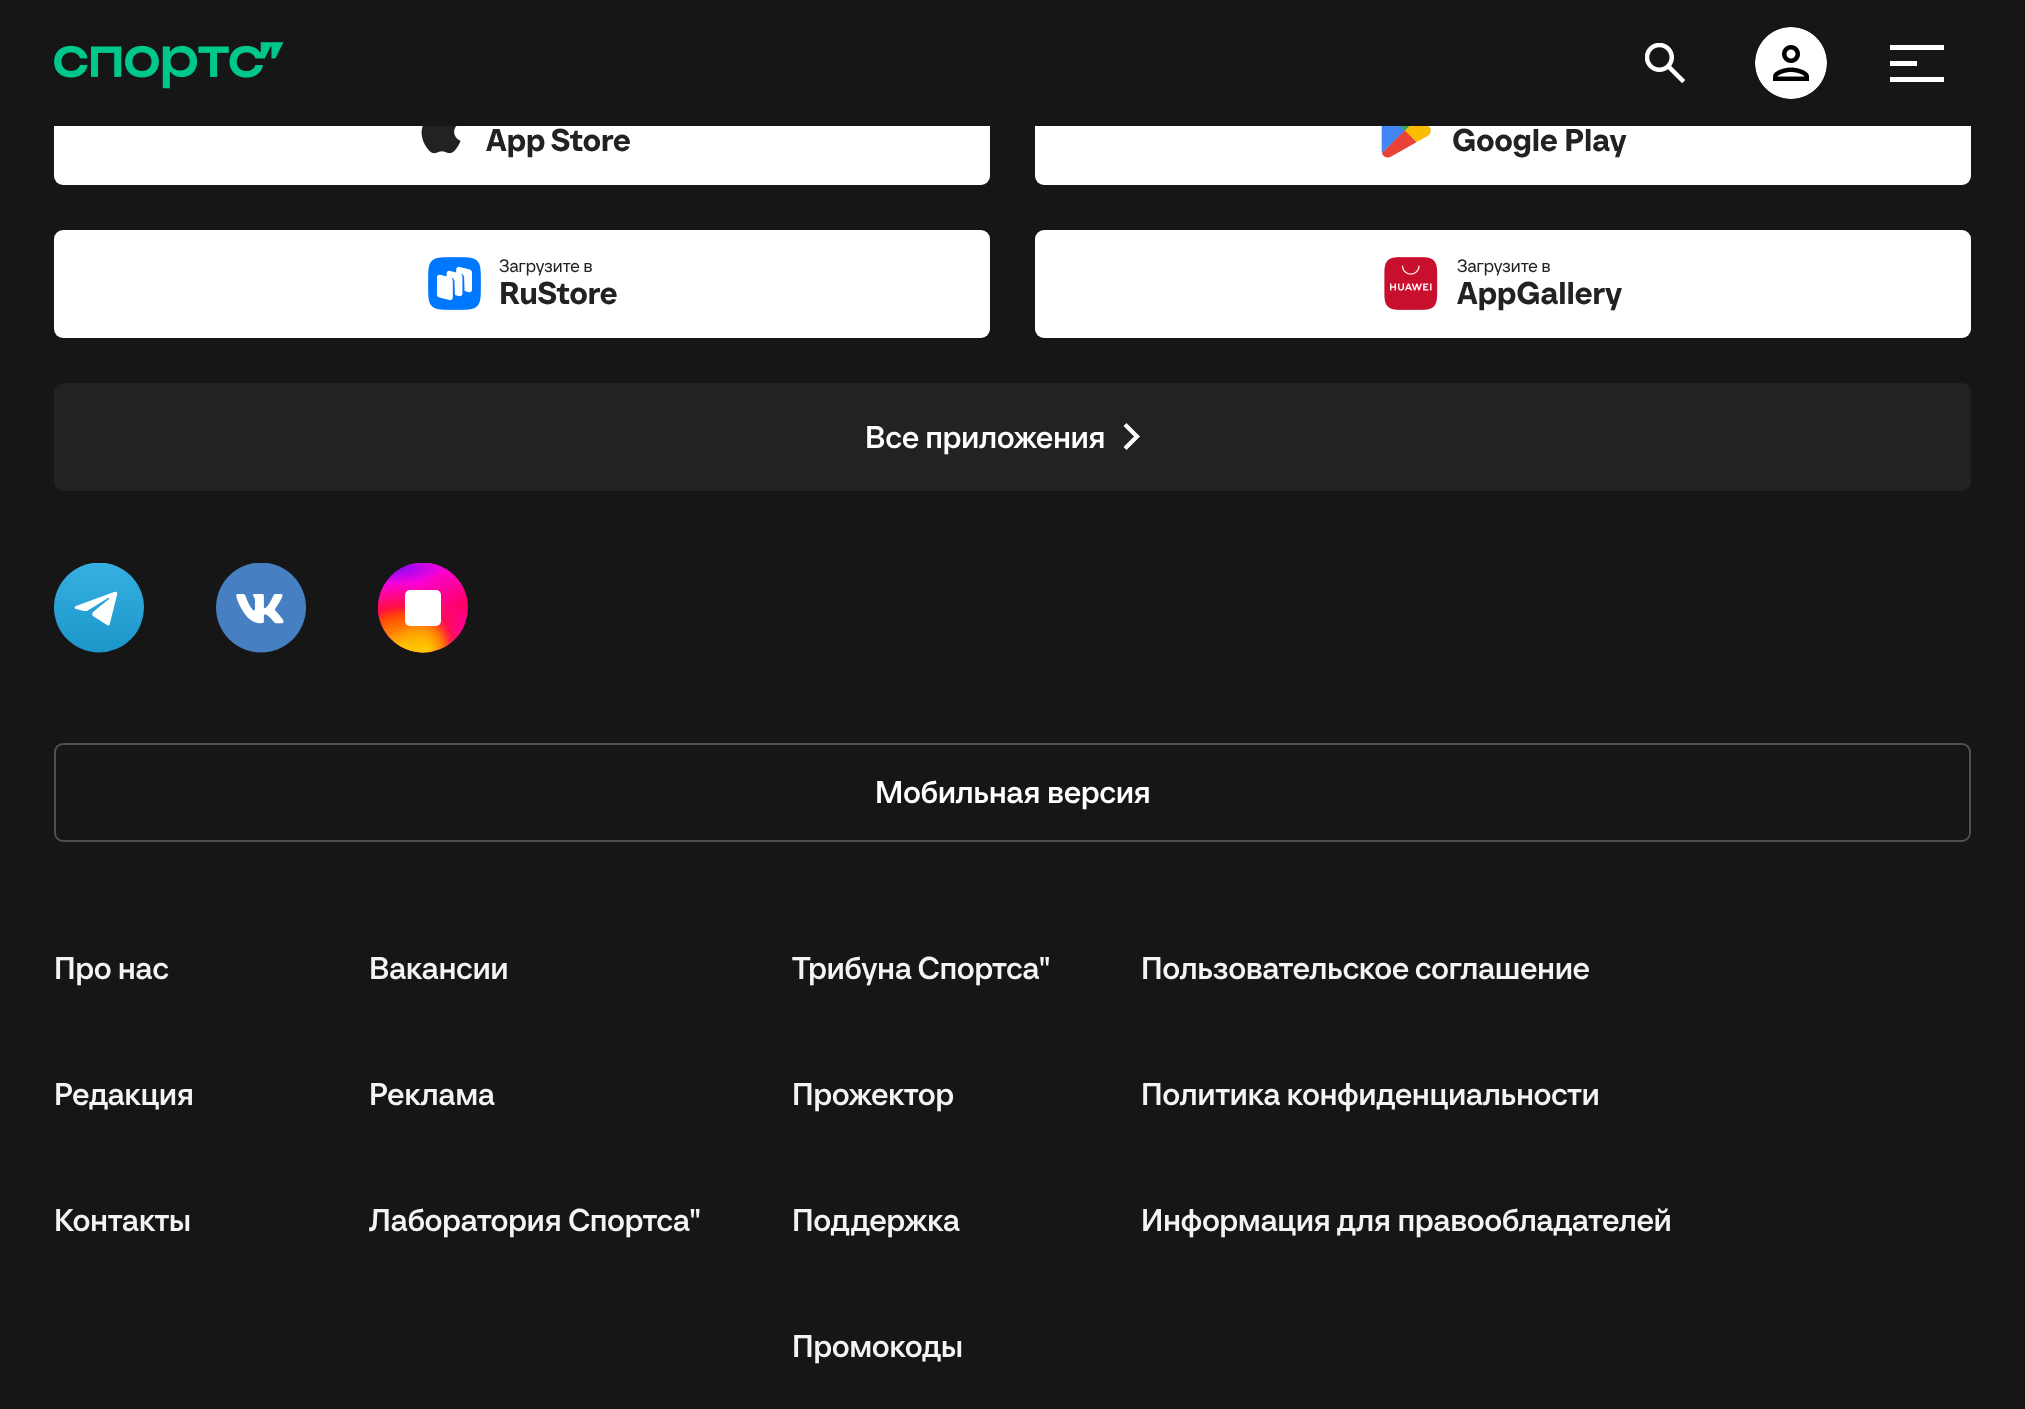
<svg xmlns="http://www.w3.org/2000/svg" width="2025" height="1409" viewBox="0 0 2025 1409">
  <defs>
    <clipPath id="clip1"><path d="M54 563h90v90H54z"/></clipPath>
    <linearGradient id="g1" gradientUnits="userSpaceOnUse" x1="54" y1="563" x2="54" y2="653"><stop offset="0" stop-color="#36afe2"/><stop offset="1" stop-color="#1c96c8"/></linearGradient>
    <clipPath id="clip2"><path d="M378 563h90v90H378z"/></clipPath>
    <radialGradient id="g2" gradientUnits="userSpaceOnUse" cx="0" cy="0" r="1" gradientTransform="matrix(58 0 0 41 465 605)"><stop offset="0" stop-color="#ff005f"/><stop offset="1" stop-color="#fc01d8"/></radialGradient>
    <radialGradient id="g3" gradientUnits="userSpaceOnUse" cx="0" cy="0" r="1" gradientTransform="matrix(72 0 0 76 402 659)"><stop offset="0" stop-color="#fc0"/><stop offset="0.12" stop-color="#fc0"/><stop offset="0.57" stop-color="#fe4a05"/><stop offset="0.69" stop-color="#ff0f3f"/><stop offset="1" stop-color="#ff0f3f" stop-opacity="0"/></radialGradient>
    <radialGradient id="g4" gradientUnits="userSpaceOnUse" cx="0" cy="0" r="1" gradientTransform="matrix(30 0 0 39 425 651)"><stop offset="0" stop-color="#fc0"/><stop offset="1" stop-color="#fc0" stop-opacity="0"/></radialGradient>
    <radialGradient id="g5" gradientUnits="userSpaceOnUse" cx="0" cy="0" r="1" gradientTransform="matrix(57 0 0 19 390 566)"><stop offset="0" stop-color="#780cff"/><stop offset="1" stop-color="#780cff" stop-opacity="0"/></radialGradient>
  </defs>
  <rect width="100%" height="100%" fill="#161616"/>
  <rect x="54" y="77" width="936" height="108" rx="9" fill="#fff"/>
  <rect x="1035" y="77" width="936" height="108" rx="9" fill="#fff"/>
  <path d="M54 77h1917v49H54z" fill="#161616"/>
  <image x="54" y="42" width="230" height="47" href="img/1.png"/>
  <image x="1645" y="43" width="40" height="40" href="img/2.png"/>
  <image x="1755" y="27" width="72" height="72" href="img/3.png"/>
  <path d="M1890 45h54v5H1890z" fill="#fff"/>
  <path d="M1890 61h27v5H1890z" fill="#fff"/>
  <path d="M1890 77h54v5H1890z" fill="#fff"/>
  <image x="421" y="126" width="40" height="28" href="img/4.png"/>
  <image x="1381" y="126" width="50" height="32" href="img/5.png"/>
  <rect x="54" y="230" width="936" height="108" rx="9" fill="#fff"/>
  <image x="428" y="257" width="53" height="53" href="img/6.png"/>
  <rect x="1035" y="230" width="936" height="108" rx="9" fill="#fff"/>
  <image x="1384" y="257" width="54" height="53" href="img/7.png"/>
  <rect x="54" y="383" width="1917" height="108" rx="9" fill="#222"/>
  <path d="M1134 436.5L1123.5 426L1126.5 423L1140 436.5L1126.5 450L1123.5 447Z" fill="#fff"/>
  <g clip-path="url(#clip1)">
    <circle cx="99" cy="607.5" r="45" fill="url(#g1)"/>
  </g>
  <path d="M93 612C92 613 92 615 93 616L107 625C109 626 110 625 110 623L117 595C118 592 116 591 114 592L76 606C74 607 74 608 76 609L84 611C85 611 86 611 87 611L108 598C109 598 110 598 109 599Z" fill="#fff"/>
  <image x="216" y="563" width="90" height="90" href="img/8.png"/>
  <g clip-path="url(#clip2)">
    <circle cx="423" cy="607.5" r="45" fill="url(#g2)"/>
  </g>
  <circle cx="423" cy="607.5" r="45" fill="url(#g3)"/>
  <circle cx="423" cy="607.5" r="45" fill="url(#g4)"/>
  <g clip-path="url(#clip2)">
    <circle cx="423" cy="607.5" r="45" fill="url(#g5)"/>
  </g>
  <rect x="405" y="590" width="36" height="36" rx="5" fill="#fff"/>
  <rect x="55" y="744" width="1915" height="97" rx="8" fill="none" stroke="#505050" stroke-width="2"/>
  <g font-family="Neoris" font-size="31.5" font-weight="600" fill="#222">
    <text x="486" y="151">App Store</text>
    <text x="1452" y="151">Google Play</text>
  </g>
  <text x="499" y="272" font-family="Neoris" font-size="18" fill="#222">Загрузите в</text>
  <text x="499" y="304" font-family="Neoris" font-size="31.5" font-weight="600" fill="#222">RuStore</text>
  <text x="1457" y="272" font-family="Neoris" font-size="18" fill="#222">Загрузите в</text>
  <text x="1457" y="304" font-family="Neoris" font-size="31.5" font-weight="600" fill="#222">AppGallery</text>
  <g font-family="Neoris" font-size="31.5" font-weight="500" fill="#fff">
    <text x="865" y="448">Все приложения</text>
    <text x="875" y="803">Мобильная версия</text>
  </g>
  <g font-family="Neoris" font-size="31.5" font-weight="500" fill="#f4f4f4">
    <text x="54" y="979">Про нас</text>
    <text x="54" y="1105">Редакция</text>
    <text x="54" y="1231">Контакты</text>
    <text x="369" y="979">Вакансии</text>
    <text x="369" y="1105">Реклама</text>
    <text x="369" y="1231">Лаборатория Спортса"</text>
    <text x="792" y="979">Трибуна Спортса"</text>
    <text x="792" y="1105">Прожектор</text>
    <text x="792" y="1231">Поддержка</text>
    <text x="1141" y="979">Пользовательское соглашение</text>
    <text x="1141" y="1105">Политика конфиденциальности</text>
    <text x="1141" y="1231">Информация для правообладателей</text>
    <text x="792" y="1357">Промокоды</text>
  </g>
</svg>
